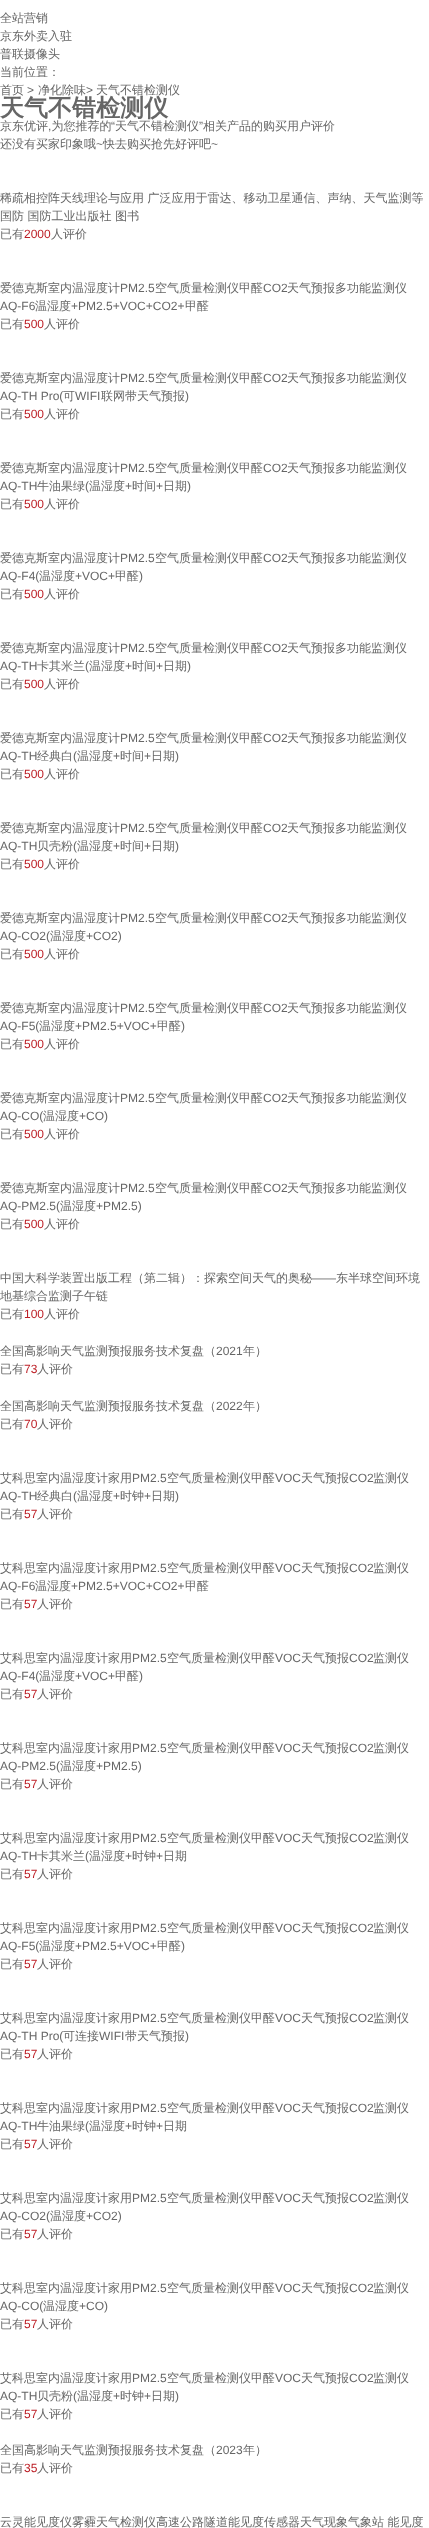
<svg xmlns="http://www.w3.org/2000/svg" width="429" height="2528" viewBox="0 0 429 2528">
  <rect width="100%" height="100%" fill="#fff"/>
  <g font-family="WenQuanYi Zen Hei" font-size="12" font-weight="500" fill="#666">
    <text x="0" y="22">全站营销</text>
    <text x="0" y="40">京东外卖入驻</text>
    <text x="0" y="58">普联摄像头</text>
    <text x="0" y="76">当前位置：</text>
    <text x="0" y="94">首页</text>
  </g>
  <text x="27" y="94" font-family="Liberation Sans" font-size="12" fill="#666">&gt;</text>
  <text x="38" y="94" font-family="WenQuanYi Zen Hei" font-size="12" font-weight="500" fill="#666">净化除味</text>
  <text x="86" y="94" font-family="Liberation Sans" font-size="12" fill="#666">&gt;</text>
  <text x="96" y="94" font-family="WenQuanYi Zen Hei" font-size="12" font-weight="500" fill="#666">天气不错检测仪</text>
  <text x="0" y="116" font-family="WenQuanYi Zen Hei" font-size="24" font-weight="bold" fill="#666">天气不错检测仪</text>
  <text x="0" y="130" font-family="WenQuanYi Zen Hei" font-size="12" font-weight="500" fill="#666">京东优评 为您推荐的</text>
  <text x="111" y="130" font-family="Liberation Sans" font-size="12" fill="#666">“</text>
  <text x="115" y="130" font-family="WenQuanYi Zen Hei" font-size="12" font-weight="500" fill="#666">天气不错检测仪</text>
  <text x="199" y="130" font-family="Liberation Sans" font-size="12" fill="#666">”</text>
  <text x="203" y="130" font-family="WenQuanYi Zen Hei" font-size="12" font-weight="500" fill="#666">相关产品的购买用户评价</text>
  <text x="48" y="130" font-family="Liberation Sans" font-size="12" fill="#666">,</text>
  <text x="0" y="148" font-family="WenQuanYi Zen Hei" font-size="12" font-weight="500" fill="#666">还没有买家印象哦</text>
  <text x="96" y="148" font-family="Liberation Sans" font-size="12" fill="#666">~</text>
  <text x="103" y="148" font-family="WenQuanYi Zen Hei" font-size="12" font-weight="500" fill="#666">快去购买抢先好评吧</text>
  <text x="211" y="148" font-family="Liberation Sans" font-size="12" fill="#666">~</text>
  <g font-family="WenQuanYi Zen Hei" font-size="12" font-weight="500" fill="#666">
    <text x="0" y="202">稀疏相控阵天线理论与应用 广泛应用于雷达、移动卫星通信、声纳、天气监测等</text>
    <text x="0" y="220">国防 国防工业出版社 图书</text>
    <text x="0" y="238">已有</text>
  </g>
  <text x="24" y="238" font-family="Liberation Sans" font-size="12" fill="#bc1d24">2000</text>
  <g font-family="WenQuanYi Zen Hei" font-size="12" font-weight="500" fill="#666">
    <text x="51" y="238">人评价</text>
    <text x="0" y="292">爱德克斯室内温湿度计</text>
  </g>
  <text x="120" y="292" font-family="Liberation Sans" font-size="12" fill="#666">PM2.5</text>
  <text x="155" y="292" font-family="WenQuanYi Zen Hei" font-size="12" font-weight="500" fill="#666">空气质量检测仪甲醛</text>
  <text x="263" y="292" font-family="Liberation Sans" font-size="12" fill="#666">CO2</text>
  <text x="287" y="292" font-family="WenQuanYi Zen Hei" font-size="12" font-weight="500" fill="#666">天气预报多功能监测仪</text>
  <text x="0" y="310" font-family="Liberation Sans" font-size="12" fill="#666">AQ-F6</text>
  <text x="35" y="310" font-family="WenQuanYi Zen Hei" font-size="12" font-weight="500" fill="#666">温湿度</text>
  <text x="71" y="310" font-family="Liberation Sans" font-size="12" fill="#666">+PM2.5+VOC+CO2+</text>
  <g font-family="WenQuanYi Zen Hei" font-size="12" font-weight="500" fill="#666">
    <text x="185" y="310">甲醛</text>
    <text x="0" y="328">已有</text>
  </g>
  <text x="24" y="328" font-family="Liberation Sans" font-size="12" fill="#bc1d24">500</text>
  <g font-family="WenQuanYi Zen Hei" font-size="12" font-weight="500" fill="#666">
    <text x="44" y="328">人评价</text>
    <text x="0" y="382">爱德克斯室内温湿度计</text>
  </g>
  <text x="120" y="382" font-family="Liberation Sans" font-size="12" fill="#666">PM2.5</text>
  <text x="155" y="382" font-family="WenQuanYi Zen Hei" font-size="12" font-weight="500" fill="#666">空气质量检测仪甲醛</text>
  <text x="263" y="382" font-family="Liberation Sans" font-size="12" fill="#666">CO2</text>
  <text x="287" y="382" font-family="WenQuanYi Zen Hei" font-size="12" font-weight="500" fill="#666">天气预报多功能监测仪</text>
  <text x="0" y="400" font-family="Liberation Sans" font-size="12" fill="#666">AQ-TH Pro(</text>
  <text x="63" y="400" font-family="WenQuanYi Zen Hei" font-size="12" font-weight="500" fill="#666">可</text>
  <text x="75" y="400" font-family="Liberation Sans" font-size="12" fill="#666">WIFI</text>
  <text x="101" y="400" font-family="WenQuanYi Zen Hei" font-size="12" font-weight="500" fill="#666">联网带天气预报</text>
  <text x="185" y="400" font-family="Liberation Sans" font-size="12" fill="#666">)</text>
  <text x="0" y="418" font-family="WenQuanYi Zen Hei" font-size="12" font-weight="500" fill="#666">已有</text>
  <text x="24" y="418" font-family="Liberation Sans" font-size="12" fill="#bc1d24">500</text>
  <g font-family="WenQuanYi Zen Hei" font-size="12" font-weight="500" fill="#666">
    <text x="44" y="418">人评价</text>
    <text x="0" y="472">爱德克斯室内温湿度计</text>
  </g>
  <text x="120" y="472" font-family="Liberation Sans" font-size="12" fill="#666">PM2.5</text>
  <text x="155" y="472" font-family="WenQuanYi Zen Hei" font-size="12" font-weight="500" fill="#666">空气质量检测仪甲醛</text>
  <text x="263" y="472" font-family="Liberation Sans" font-size="12" fill="#666">CO2</text>
  <text x="287" y="472" font-family="WenQuanYi Zen Hei" font-size="12" font-weight="500" fill="#666">天气预报多功能监测仪</text>
  <text x="0" y="490" font-family="Liberation Sans" font-size="12" fill="#666">AQ-TH</text>
  <text x="37" y="490" font-family="WenQuanYi Zen Hei" font-size="12" font-weight="500" fill="#666">牛油果绿</text>
  <text x="85" y="490" font-family="Liberation Sans" font-size="12" fill="#666">(</text>
  <text x="89" y="490" font-family="WenQuanYi Zen Hei" font-size="12" font-weight="500" fill="#666">温湿度</text>
  <text x="125" y="490" font-family="Liberation Sans" font-size="12" fill="#666">+</text>
  <text x="132" y="490" font-family="WenQuanYi Zen Hei" font-size="12" font-weight="500" fill="#666">时间</text>
  <text x="156" y="490" font-family="Liberation Sans" font-size="12" fill="#666">+</text>
  <text x="163" y="490" font-family="WenQuanYi Zen Hei" font-size="12" font-weight="500" fill="#666">日期</text>
  <text x="187" y="490" font-family="Liberation Sans" font-size="12" fill="#666">)</text>
  <text x="0" y="508" font-family="WenQuanYi Zen Hei" font-size="12" font-weight="500" fill="#666">已有</text>
  <text x="24" y="508" font-family="Liberation Sans" font-size="12" fill="#bc1d24">500</text>
  <g font-family="WenQuanYi Zen Hei" font-size="12" font-weight="500" fill="#666">
    <text x="44" y="508">人评价</text>
    <text x="0" y="562">爱德克斯室内温湿度计</text>
  </g>
  <text x="120" y="562" font-family="Liberation Sans" font-size="12" fill="#666">PM2.5</text>
  <text x="155" y="562" font-family="WenQuanYi Zen Hei" font-size="12" font-weight="500" fill="#666">空气质量检测仪甲醛</text>
  <text x="263" y="562" font-family="Liberation Sans" font-size="12" fill="#666">CO2</text>
  <text x="287" y="562" font-family="WenQuanYi Zen Hei" font-size="12" font-weight="500" fill="#666">天气预报多功能监测仪</text>
  <text x="0" y="580" font-family="Liberation Sans" font-size="12" fill="#666">AQ-F4(</text>
  <text x="39" y="580" font-family="WenQuanYi Zen Hei" font-size="12" font-weight="500" fill="#666">温湿度</text>
  <text x="75" y="580" font-family="Liberation Sans" font-size="12" fill="#666">+VOC+</text>
  <text x="115" y="580" font-family="WenQuanYi Zen Hei" font-size="12" font-weight="500" fill="#666">甲醛</text>
  <text x="139" y="580" font-family="Liberation Sans" font-size="12" fill="#666">)</text>
  <text x="0" y="598" font-family="WenQuanYi Zen Hei" font-size="12" font-weight="500" fill="#666">已有</text>
  <text x="24" y="598" font-family="Liberation Sans" font-size="12" fill="#bc1d24">500</text>
  <g font-family="WenQuanYi Zen Hei" font-size="12" font-weight="500" fill="#666">
    <text x="44" y="598">人评价</text>
    <text x="0" y="652">爱德克斯室内温湿度计</text>
  </g>
  <text x="120" y="652" font-family="Liberation Sans" font-size="12" fill="#666">PM2.5</text>
  <text x="155" y="652" font-family="WenQuanYi Zen Hei" font-size="12" font-weight="500" fill="#666">空气质量检测仪甲醛</text>
  <text x="263" y="652" font-family="Liberation Sans" font-size="12" fill="#666">CO2</text>
  <text x="287" y="652" font-family="WenQuanYi Zen Hei" font-size="12" font-weight="500" fill="#666">天气预报多功能监测仪</text>
  <text x="0" y="670" font-family="Liberation Sans" font-size="12" fill="#666">AQ-TH</text>
  <text x="37" y="670" font-family="WenQuanYi Zen Hei" font-size="12" font-weight="500" fill="#666">卡其米兰</text>
  <text x="85" y="670" font-family="Liberation Sans" font-size="12" fill="#666">(</text>
  <text x="89" y="670" font-family="WenQuanYi Zen Hei" font-size="12" font-weight="500" fill="#666">温湿度</text>
  <text x="125" y="670" font-family="Liberation Sans" font-size="12" fill="#666">+</text>
  <text x="132" y="670" font-family="WenQuanYi Zen Hei" font-size="12" font-weight="500" fill="#666">时间</text>
  <text x="156" y="670" font-family="Liberation Sans" font-size="12" fill="#666">+</text>
  <text x="163" y="670" font-family="WenQuanYi Zen Hei" font-size="12" font-weight="500" fill="#666">日期</text>
  <text x="187" y="670" font-family="Liberation Sans" font-size="12" fill="#666">)</text>
  <text x="0" y="688" font-family="WenQuanYi Zen Hei" font-size="12" font-weight="500" fill="#666">已有</text>
  <text x="24" y="688" font-family="Liberation Sans" font-size="12" fill="#bc1d24">500</text>
  <g font-family="WenQuanYi Zen Hei" font-size="12" font-weight="500" fill="#666">
    <text x="44" y="688">人评价</text>
    <text x="0" y="742">爱德克斯室内温湿度计</text>
  </g>
  <text x="120" y="742" font-family="Liberation Sans" font-size="12" fill="#666">PM2.5</text>
  <text x="155" y="742" font-family="WenQuanYi Zen Hei" font-size="12" font-weight="500" fill="#666">空气质量检测仪甲醛</text>
  <text x="263" y="742" font-family="Liberation Sans" font-size="12" fill="#666">CO2</text>
  <text x="287" y="742" font-family="WenQuanYi Zen Hei" font-size="12" font-weight="500" fill="#666">天气预报多功能监测仪</text>
  <text x="0" y="760" font-family="Liberation Sans" font-size="12" fill="#666">AQ-TH</text>
  <text x="37" y="760" font-family="WenQuanYi Zen Hei" font-size="12" font-weight="500" fill="#666">经典白</text>
  <text x="73" y="760" font-family="Liberation Sans" font-size="12" fill="#666">(</text>
  <text x="77" y="760" font-family="WenQuanYi Zen Hei" font-size="12" font-weight="500" fill="#666">温湿度</text>
  <text x="113" y="760" font-family="Liberation Sans" font-size="12" fill="#666">+</text>
  <text x="120" y="760" font-family="WenQuanYi Zen Hei" font-size="12" font-weight="500" fill="#666">时间</text>
  <text x="144" y="760" font-family="Liberation Sans" font-size="12" fill="#666">+</text>
  <text x="151" y="760" font-family="WenQuanYi Zen Hei" font-size="12" font-weight="500" fill="#666">日期</text>
  <text x="175" y="760" font-family="Liberation Sans" font-size="12" fill="#666">)</text>
  <text x="0" y="778" font-family="WenQuanYi Zen Hei" font-size="12" font-weight="500" fill="#666">已有</text>
  <text x="24" y="778" font-family="Liberation Sans" font-size="12" fill="#bc1d24">500</text>
  <g font-family="WenQuanYi Zen Hei" font-size="12" font-weight="500" fill="#666">
    <text x="44" y="778">人评价</text>
    <text x="0" y="832">爱德克斯室内温湿度计</text>
  </g>
  <text x="120" y="832" font-family="Liberation Sans" font-size="12" fill="#666">PM2.5</text>
  <text x="155" y="832" font-family="WenQuanYi Zen Hei" font-size="12" font-weight="500" fill="#666">空气质量检测仪甲醛</text>
  <text x="263" y="832" font-family="Liberation Sans" font-size="12" fill="#666">CO2</text>
  <text x="287" y="832" font-family="WenQuanYi Zen Hei" font-size="12" font-weight="500" fill="#666">天气预报多功能监测仪</text>
  <text x="0" y="850" font-family="Liberation Sans" font-size="12" fill="#666">AQ-TH</text>
  <text x="37" y="850" font-family="WenQuanYi Zen Hei" font-size="12" font-weight="500" fill="#666">贝壳粉</text>
  <text x="73" y="850" font-family="Liberation Sans" font-size="12" fill="#666">(</text>
  <text x="77" y="850" font-family="WenQuanYi Zen Hei" font-size="12" font-weight="500" fill="#666">温湿度</text>
  <text x="113" y="850" font-family="Liberation Sans" font-size="12" fill="#666">+</text>
  <text x="120" y="850" font-family="WenQuanYi Zen Hei" font-size="12" font-weight="500" fill="#666">时间</text>
  <text x="144" y="850" font-family="Liberation Sans" font-size="12" fill="#666">+</text>
  <text x="151" y="850" font-family="WenQuanYi Zen Hei" font-size="12" font-weight="500" fill="#666">日期</text>
  <text x="175" y="850" font-family="Liberation Sans" font-size="12" fill="#666">)</text>
  <text x="0" y="868" font-family="WenQuanYi Zen Hei" font-size="12" font-weight="500" fill="#666">已有</text>
  <text x="24" y="868" font-family="Liberation Sans" font-size="12" fill="#bc1d24">500</text>
  <g font-family="WenQuanYi Zen Hei" font-size="12" font-weight="500" fill="#666">
    <text x="44" y="868">人评价</text>
    <text x="0" y="922">爱德克斯室内温湿度计</text>
  </g>
  <text x="120" y="922" font-family="Liberation Sans" font-size="12" fill="#666">PM2.5</text>
  <text x="155" y="922" font-family="WenQuanYi Zen Hei" font-size="12" font-weight="500" fill="#666">空气质量检测仪甲醛</text>
  <text x="263" y="922" font-family="Liberation Sans" font-size="12" fill="#666">CO2</text>
  <text x="287" y="922" font-family="WenQuanYi Zen Hei" font-size="12" font-weight="500" fill="#666">天气预报多功能监测仪</text>
  <text x="0" y="940" font-family="Liberation Sans" font-size="12" fill="#666">AQ-CO2(</text>
  <text x="50" y="940" font-family="WenQuanYi Zen Hei" font-size="12" font-weight="500" fill="#666">温湿度</text>
  <text x="86" y="940" font-family="Liberation Sans" font-size="12" fill="#666">+CO2)</text>
  <text x="0" y="958" font-family="WenQuanYi Zen Hei" font-size="12" font-weight="500" fill="#666">已有</text>
  <text x="24" y="958" font-family="Liberation Sans" font-size="12" fill="#bc1d24">500</text>
  <g font-family="WenQuanYi Zen Hei" font-size="12" font-weight="500" fill="#666">
    <text x="44" y="958">人评价</text>
    <text x="0" y="1012">爱德克斯室内温湿度计</text>
  </g>
  <text x="120" y="1012" font-family="Liberation Sans" font-size="12" fill="#666">PM2.5</text>
  <text x="155" y="1012" font-family="WenQuanYi Zen Hei" font-size="12" font-weight="500" fill="#666">空气质量检测仪甲醛</text>
  <text x="263" y="1012" font-family="Liberation Sans" font-size="12" fill="#666">CO2</text>
  <text x="287" y="1012" font-family="WenQuanYi Zen Hei" font-size="12" font-weight="500" fill="#666">天气预报多功能监测仪</text>
  <text x="0" y="1030" font-family="Liberation Sans" font-size="12" fill="#666">AQ-F5(</text>
  <text x="39" y="1030" font-family="WenQuanYi Zen Hei" font-size="12" font-weight="500" fill="#666">温湿度</text>
  <text x="75" y="1030" font-family="Liberation Sans" font-size="12" fill="#666">+PM2.5+VOC+</text>
  <text x="157" y="1030" font-family="WenQuanYi Zen Hei" font-size="12" font-weight="500" fill="#666">甲醛</text>
  <text x="181" y="1030" font-family="Liberation Sans" font-size="12" fill="#666">)</text>
  <text x="0" y="1048" font-family="WenQuanYi Zen Hei" font-size="12" font-weight="500" fill="#666">已有</text>
  <text x="24" y="1048" font-family="Liberation Sans" font-size="12" fill="#bc1d24">500</text>
  <g font-family="WenQuanYi Zen Hei" font-size="12" font-weight="500" fill="#666">
    <text x="44" y="1048">人评价</text>
    <text x="0" y="1102">爱德克斯室内温湿度计</text>
  </g>
  <text x="120" y="1102" font-family="Liberation Sans" font-size="12" fill="#666">PM2.5</text>
  <text x="155" y="1102" font-family="WenQuanYi Zen Hei" font-size="12" font-weight="500" fill="#666">空气质量检测仪甲醛</text>
  <text x="263" y="1102" font-family="Liberation Sans" font-size="12" fill="#666">CO2</text>
  <text x="287" y="1102" font-family="WenQuanYi Zen Hei" font-size="12" font-weight="500" fill="#666">天气预报多功能监测仪</text>
  <text x="0" y="1120" font-family="Liberation Sans" font-size="12" fill="#666">AQ-CO(</text>
  <text x="43" y="1120" font-family="WenQuanYi Zen Hei" font-size="12" font-weight="500" fill="#666">温湿度</text>
  <text x="79" y="1120" font-family="Liberation Sans" font-size="12" fill="#666">+CO)</text>
  <text x="0" y="1138" font-family="WenQuanYi Zen Hei" font-size="12" font-weight="500" fill="#666">已有</text>
  <text x="24" y="1138" font-family="Liberation Sans" font-size="12" fill="#bc1d24">500</text>
  <g font-family="WenQuanYi Zen Hei" font-size="12" font-weight="500" fill="#666">
    <text x="44" y="1138">人评价</text>
    <text x="0" y="1192">爱德克斯室内温湿度计</text>
  </g>
  <text x="120" y="1192" font-family="Liberation Sans" font-size="12" fill="#666">PM2.5</text>
  <text x="155" y="1192" font-family="WenQuanYi Zen Hei" font-size="12" font-weight="500" fill="#666">空气质量检测仪甲醛</text>
  <text x="263" y="1192" font-family="Liberation Sans" font-size="12" fill="#666">CO2</text>
  <text x="287" y="1192" font-family="WenQuanYi Zen Hei" font-size="12" font-weight="500" fill="#666">天气预报多功能监测仪</text>
  <text x="0" y="1210" font-family="Liberation Sans" font-size="12" fill="#666">AQ-PM2.5(</text>
  <text x="60" y="1210" font-family="WenQuanYi Zen Hei" font-size="12" font-weight="500" fill="#666">温湿度</text>
  <text x="96" y="1210" font-family="Liberation Sans" font-size="12" fill="#666">+PM2.5)</text>
  <text x="0" y="1228" font-family="WenQuanYi Zen Hei" font-size="12" font-weight="500" fill="#666">已有</text>
  <text x="24" y="1228" font-family="Liberation Sans" font-size="12" fill="#bc1d24">500</text>
  <g font-family="WenQuanYi Zen Hei" font-size="12" font-weight="500" fill="#666">
    <text x="44" y="1228">人评价</text>
    <text x="0" y="1282">中国大科学装置出版工程（第二辑）：探索空间天气的奥秘</text>
  </g>
  <text x="312" y="1282" font-family="Liberation Sans" font-size="12" fill="#666">——</text>
  <g font-family="WenQuanYi Zen Hei" font-size="12" font-weight="500" fill="#666">
    <text x="336" y="1282">东半球空间环境</text>
    <text x="0" y="1300">地基综合监测子午链</text>
    <text x="0" y="1318">已有</text>
  </g>
  <text x="24" y="1318" font-family="Liberation Sans" font-size="12" fill="#bc1d24">100</text>
  <g font-family="WenQuanYi Zen Hei" font-size="12" font-weight="500" fill="#666">
    <text x="44" y="1318">人评价</text>
    <text x="0" y="1355">全国高影响天气监测预报服务技术复盘（</text>
  </g>
  <text x="216" y="1355" font-family="Liberation Sans" font-size="12" fill="#666">2021</text>
  <g font-family="WenQuanYi Zen Hei" font-size="12" font-weight="500" fill="#666">
    <text x="243" y="1355">年）</text>
    <text x="0" y="1373">已有</text>
  </g>
  <text x="24" y="1373" font-family="Liberation Sans" font-size="12" fill="#bc1d24">73</text>
  <g font-family="WenQuanYi Zen Hei" font-size="12" font-weight="500" fill="#666">
    <text x="37" y="1373">人评价</text>
    <text x="0" y="1410">全国高影响天气监测预报服务技术复盘（</text>
  </g>
  <text x="216" y="1410" font-family="Liberation Sans" font-size="12" fill="#666">2022</text>
  <g font-family="WenQuanYi Zen Hei" font-size="12" font-weight="500" fill="#666">
    <text x="243" y="1410">年）</text>
    <text x="0" y="1428">已有</text>
  </g>
  <text x="24" y="1428" font-family="Liberation Sans" font-size="12" fill="#bc1d24">70</text>
  <g font-family="WenQuanYi Zen Hei" font-size="12" font-weight="500" fill="#666">
    <text x="37" y="1428">人评价</text>
    <text x="0" y="1482">艾科思室内温湿度计家用</text>
  </g>
  <text x="132" y="1482" font-family="Liberation Sans" font-size="12" fill="#666">PM2.5</text>
  <text x="167" y="1482" font-family="WenQuanYi Zen Hei" font-size="12" font-weight="500" fill="#666">空气质量检测仪甲醛</text>
  <text x="275" y="1482" font-family="Liberation Sans" font-size="12" fill="#666">VOC</text>
  <text x="301" y="1482" font-family="WenQuanYi Zen Hei" font-size="12" font-weight="500" fill="#666">天气预报</text>
  <text x="349" y="1482" font-family="Liberation Sans" font-size="12" fill="#666">CO2</text>
  <text x="373" y="1482" font-family="WenQuanYi Zen Hei" font-size="12" font-weight="500" fill="#666">监测仪</text>
  <text x="0" y="1500" font-family="Liberation Sans" font-size="12" fill="#666">AQ-TH</text>
  <text x="37" y="1500" font-family="WenQuanYi Zen Hei" font-size="12" font-weight="500" fill="#666">经典白</text>
  <text x="73" y="1500" font-family="Liberation Sans" font-size="12" fill="#666">(</text>
  <text x="77" y="1500" font-family="WenQuanYi Zen Hei" font-size="12" font-weight="500" fill="#666">温湿度</text>
  <text x="113" y="1500" font-family="Liberation Sans" font-size="12" fill="#666">+</text>
  <text x="120" y="1500" font-family="WenQuanYi Zen Hei" font-size="12" font-weight="500" fill="#666">时钟</text>
  <text x="144" y="1500" font-family="Liberation Sans" font-size="12" fill="#666">+</text>
  <text x="151" y="1500" font-family="WenQuanYi Zen Hei" font-size="12" font-weight="500" fill="#666">日期</text>
  <text x="175" y="1500" font-family="Liberation Sans" font-size="12" fill="#666">)</text>
  <text x="0" y="1518" font-family="WenQuanYi Zen Hei" font-size="12" font-weight="500" fill="#666">已有</text>
  <text x="24" y="1518" font-family="Liberation Sans" font-size="12" fill="#bc1d24">57</text>
  <g font-family="WenQuanYi Zen Hei" font-size="12" font-weight="500" fill="#666">
    <text x="37" y="1518">人评价</text>
    <text x="0" y="1572">艾科思室内温湿度计家用</text>
  </g>
  <text x="132" y="1572" font-family="Liberation Sans" font-size="12" fill="#666">PM2.5</text>
  <text x="167" y="1572" font-family="WenQuanYi Zen Hei" font-size="12" font-weight="500" fill="#666">空气质量检测仪甲醛</text>
  <text x="275" y="1572" font-family="Liberation Sans" font-size="12" fill="#666">VOC</text>
  <text x="301" y="1572" font-family="WenQuanYi Zen Hei" font-size="12" font-weight="500" fill="#666">天气预报</text>
  <text x="349" y="1572" font-family="Liberation Sans" font-size="12" fill="#666">CO2</text>
  <text x="373" y="1572" font-family="WenQuanYi Zen Hei" font-size="12" font-weight="500" fill="#666">监测仪</text>
  <text x="0" y="1590" font-family="Liberation Sans" font-size="12" fill="#666">AQ-F6</text>
  <text x="35" y="1590" font-family="WenQuanYi Zen Hei" font-size="12" font-weight="500" fill="#666">温湿度</text>
  <text x="71" y="1590" font-family="Liberation Sans" font-size="12" fill="#666">+PM2.5+VOC+CO2+</text>
  <g font-family="WenQuanYi Zen Hei" font-size="12" font-weight="500" fill="#666">
    <text x="185" y="1590">甲醛</text>
    <text x="0" y="1608">已有</text>
  </g>
  <text x="24" y="1608" font-family="Liberation Sans" font-size="12" fill="#bc1d24">57</text>
  <g font-family="WenQuanYi Zen Hei" font-size="12" font-weight="500" fill="#666">
    <text x="37" y="1608">人评价</text>
    <text x="0" y="1662">艾科思室内温湿度计家用</text>
  </g>
  <text x="132" y="1662" font-family="Liberation Sans" font-size="12" fill="#666">PM2.5</text>
  <text x="167" y="1662" font-family="WenQuanYi Zen Hei" font-size="12" font-weight="500" fill="#666">空气质量检测仪甲醛</text>
  <text x="275" y="1662" font-family="Liberation Sans" font-size="12" fill="#666">VOC</text>
  <text x="301" y="1662" font-family="WenQuanYi Zen Hei" font-size="12" font-weight="500" fill="#666">天气预报</text>
  <text x="349" y="1662" font-family="Liberation Sans" font-size="12" fill="#666">CO2</text>
  <text x="373" y="1662" font-family="WenQuanYi Zen Hei" font-size="12" font-weight="500" fill="#666">监测仪</text>
  <text x="0" y="1680" font-family="Liberation Sans" font-size="12" fill="#666">AQ-F4(</text>
  <text x="39" y="1680" font-family="WenQuanYi Zen Hei" font-size="12" font-weight="500" fill="#666">温湿度</text>
  <text x="75" y="1680" font-family="Liberation Sans" font-size="12" fill="#666">+VOC+</text>
  <text x="115" y="1680" font-family="WenQuanYi Zen Hei" font-size="12" font-weight="500" fill="#666">甲醛</text>
  <text x="139" y="1680" font-family="Liberation Sans" font-size="12" fill="#666">)</text>
  <text x="0" y="1698" font-family="WenQuanYi Zen Hei" font-size="12" font-weight="500" fill="#666">已有</text>
  <text x="24" y="1698" font-family="Liberation Sans" font-size="12" fill="#bc1d24">57</text>
  <g font-family="WenQuanYi Zen Hei" font-size="12" font-weight="500" fill="#666">
    <text x="37" y="1698">人评价</text>
    <text x="0" y="1752">艾科思室内温湿度计家用</text>
  </g>
  <text x="132" y="1752" font-family="Liberation Sans" font-size="12" fill="#666">PM2.5</text>
  <text x="167" y="1752" font-family="WenQuanYi Zen Hei" font-size="12" font-weight="500" fill="#666">空气质量检测仪甲醛</text>
  <text x="275" y="1752" font-family="Liberation Sans" font-size="12" fill="#666">VOC</text>
  <text x="301" y="1752" font-family="WenQuanYi Zen Hei" font-size="12" font-weight="500" fill="#666">天气预报</text>
  <text x="349" y="1752" font-family="Liberation Sans" font-size="12" fill="#666">CO2</text>
  <text x="373" y="1752" font-family="WenQuanYi Zen Hei" font-size="12" font-weight="500" fill="#666">监测仪</text>
  <text x="0" y="1770" font-family="Liberation Sans" font-size="12" fill="#666">AQ-PM2.5(</text>
  <text x="60" y="1770" font-family="WenQuanYi Zen Hei" font-size="12" font-weight="500" fill="#666">温湿度</text>
  <text x="96" y="1770" font-family="Liberation Sans" font-size="12" fill="#666">+PM2.5)</text>
  <text x="0" y="1788" font-family="WenQuanYi Zen Hei" font-size="12" font-weight="500" fill="#666">已有</text>
  <text x="24" y="1788" font-family="Liberation Sans" font-size="12" fill="#bc1d24">57</text>
  <g font-family="WenQuanYi Zen Hei" font-size="12" font-weight="500" fill="#666">
    <text x="37" y="1788">人评价</text>
    <text x="0" y="1842">艾科思室内温湿度计家用</text>
  </g>
  <text x="132" y="1842" font-family="Liberation Sans" font-size="12" fill="#666">PM2.5</text>
  <text x="167" y="1842" font-family="WenQuanYi Zen Hei" font-size="12" font-weight="500" fill="#666">空气质量检测仪甲醛</text>
  <text x="275" y="1842" font-family="Liberation Sans" font-size="12" fill="#666">VOC</text>
  <text x="301" y="1842" font-family="WenQuanYi Zen Hei" font-size="12" font-weight="500" fill="#666">天气预报</text>
  <text x="349" y="1842" font-family="Liberation Sans" font-size="12" fill="#666">CO2</text>
  <text x="373" y="1842" font-family="WenQuanYi Zen Hei" font-size="12" font-weight="500" fill="#666">监测仪</text>
  <text x="0" y="1860" font-family="Liberation Sans" font-size="12" fill="#666">AQ-TH</text>
  <text x="37" y="1860" font-family="WenQuanYi Zen Hei" font-size="12" font-weight="500" fill="#666">卡其米兰</text>
  <text x="85" y="1860" font-family="Liberation Sans" font-size="12" fill="#666">(</text>
  <text x="89" y="1860" font-family="WenQuanYi Zen Hei" font-size="12" font-weight="500" fill="#666">温湿度</text>
  <text x="125" y="1860" font-family="Liberation Sans" font-size="12" fill="#666">+</text>
  <text x="132" y="1860" font-family="WenQuanYi Zen Hei" font-size="12" font-weight="500" fill="#666">时钟</text>
  <text x="156" y="1860" font-family="Liberation Sans" font-size="12" fill="#666">+</text>
  <g font-family="WenQuanYi Zen Hei" font-size="12" font-weight="500" fill="#666">
    <text x="163" y="1860">日期</text>
    <text x="0" y="1878">已有</text>
  </g>
  <text x="24" y="1878" font-family="Liberation Sans" font-size="12" fill="#bc1d24">57</text>
  <g font-family="WenQuanYi Zen Hei" font-size="12" font-weight="500" fill="#666">
    <text x="37" y="1878">人评价</text>
    <text x="0" y="1932">艾科思室内温湿度计家用</text>
  </g>
  <text x="132" y="1932" font-family="Liberation Sans" font-size="12" fill="#666">PM2.5</text>
  <text x="167" y="1932" font-family="WenQuanYi Zen Hei" font-size="12" font-weight="500" fill="#666">空气质量检测仪甲醛</text>
  <text x="275" y="1932" font-family="Liberation Sans" font-size="12" fill="#666">VOC</text>
  <text x="301" y="1932" font-family="WenQuanYi Zen Hei" font-size="12" font-weight="500" fill="#666">天气预报</text>
  <text x="349" y="1932" font-family="Liberation Sans" font-size="12" fill="#666">CO2</text>
  <text x="373" y="1932" font-family="WenQuanYi Zen Hei" font-size="12" font-weight="500" fill="#666">监测仪</text>
  <text x="0" y="1950" font-family="Liberation Sans" font-size="12" fill="#666">AQ-F5(</text>
  <text x="39" y="1950" font-family="WenQuanYi Zen Hei" font-size="12" font-weight="500" fill="#666">温湿度</text>
  <text x="75" y="1950" font-family="Liberation Sans" font-size="12" fill="#666">+PM2.5+VOC+</text>
  <text x="157" y="1950" font-family="WenQuanYi Zen Hei" font-size="12" font-weight="500" fill="#666">甲醛</text>
  <text x="181" y="1950" font-family="Liberation Sans" font-size="12" fill="#666">)</text>
  <text x="0" y="1968" font-family="WenQuanYi Zen Hei" font-size="12" font-weight="500" fill="#666">已有</text>
  <text x="24" y="1968" font-family="Liberation Sans" font-size="12" fill="#bc1d24">57</text>
  <g font-family="WenQuanYi Zen Hei" font-size="12" font-weight="500" fill="#666">
    <text x="37" y="1968">人评价</text>
    <text x="0" y="2022">艾科思室内温湿度计家用</text>
  </g>
  <text x="132" y="2022" font-family="Liberation Sans" font-size="12" fill="#666">PM2.5</text>
  <text x="167" y="2022" font-family="WenQuanYi Zen Hei" font-size="12" font-weight="500" fill="#666">空气质量检测仪甲醛</text>
  <text x="275" y="2022" font-family="Liberation Sans" font-size="12" fill="#666">VOC</text>
  <text x="301" y="2022" font-family="WenQuanYi Zen Hei" font-size="12" font-weight="500" fill="#666">天气预报</text>
  <text x="349" y="2022" font-family="Liberation Sans" font-size="12" fill="#666">CO2</text>
  <text x="373" y="2022" font-family="WenQuanYi Zen Hei" font-size="12" font-weight="500" fill="#666">监测仪</text>
  <text x="0" y="2040" font-family="Liberation Sans" font-size="12" fill="#666">AQ-TH Pro(</text>
  <text x="63" y="2040" font-family="WenQuanYi Zen Hei" font-size="12" font-weight="500" fill="#666">可连接</text>
  <text x="99" y="2040" font-family="Liberation Sans" font-size="12" fill="#666">WIFI</text>
  <text x="125" y="2040" font-family="WenQuanYi Zen Hei" font-size="12" font-weight="500" fill="#666">带天气预报</text>
  <text x="185" y="2040" font-family="Liberation Sans" font-size="12" fill="#666">)</text>
  <text x="0" y="2058" font-family="WenQuanYi Zen Hei" font-size="12" font-weight="500" fill="#666">已有</text>
  <text x="24" y="2058" font-family="Liberation Sans" font-size="12" fill="#bc1d24">57</text>
  <g font-family="WenQuanYi Zen Hei" font-size="12" font-weight="500" fill="#666">
    <text x="37" y="2058">人评价</text>
    <text x="0" y="2112">艾科思室内温湿度计家用</text>
  </g>
  <text x="132" y="2112" font-family="Liberation Sans" font-size="12" fill="#666">PM2.5</text>
  <text x="167" y="2112" font-family="WenQuanYi Zen Hei" font-size="12" font-weight="500" fill="#666">空气质量检测仪甲醛</text>
  <text x="275" y="2112" font-family="Liberation Sans" font-size="12" fill="#666">VOC</text>
  <text x="301" y="2112" font-family="WenQuanYi Zen Hei" font-size="12" font-weight="500" fill="#666">天气预报</text>
  <text x="349" y="2112" font-family="Liberation Sans" font-size="12" fill="#666">CO2</text>
  <text x="373" y="2112" font-family="WenQuanYi Zen Hei" font-size="12" font-weight="500" fill="#666">监测仪</text>
  <text x="0" y="2130" font-family="Liberation Sans" font-size="12" fill="#666">AQ-TH</text>
  <text x="37" y="2130" font-family="WenQuanYi Zen Hei" font-size="12" font-weight="500" fill="#666">牛油果绿</text>
  <text x="85" y="2130" font-family="Liberation Sans" font-size="12" fill="#666">(</text>
  <text x="89" y="2130" font-family="WenQuanYi Zen Hei" font-size="12" font-weight="500" fill="#666">温湿度</text>
  <text x="125" y="2130" font-family="Liberation Sans" font-size="12" fill="#666">+</text>
  <text x="132" y="2130" font-family="WenQuanYi Zen Hei" font-size="12" font-weight="500" fill="#666">时钟</text>
  <text x="156" y="2130" font-family="Liberation Sans" font-size="12" fill="#666">+</text>
  <g font-family="WenQuanYi Zen Hei" font-size="12" font-weight="500" fill="#666">
    <text x="163" y="2130">日期</text>
    <text x="0" y="2148">已有</text>
  </g>
  <text x="24" y="2148" font-family="Liberation Sans" font-size="12" fill="#bc1d24">57</text>
  <g font-family="WenQuanYi Zen Hei" font-size="12" font-weight="500" fill="#666">
    <text x="37" y="2148">人评价</text>
    <text x="0" y="2202">艾科思室内温湿度计家用</text>
  </g>
  <text x="132" y="2202" font-family="Liberation Sans" font-size="12" fill="#666">PM2.5</text>
  <text x="167" y="2202" font-family="WenQuanYi Zen Hei" font-size="12" font-weight="500" fill="#666">空气质量检测仪甲醛</text>
  <text x="275" y="2202" font-family="Liberation Sans" font-size="12" fill="#666">VOC</text>
  <text x="301" y="2202" font-family="WenQuanYi Zen Hei" font-size="12" font-weight="500" fill="#666">天气预报</text>
  <text x="349" y="2202" font-family="Liberation Sans" font-size="12" fill="#666">CO2</text>
  <text x="373" y="2202" font-family="WenQuanYi Zen Hei" font-size="12" font-weight="500" fill="#666">监测仪</text>
  <text x="0" y="2220" font-family="Liberation Sans" font-size="12" fill="#666">AQ-CO2(</text>
  <text x="50" y="2220" font-family="WenQuanYi Zen Hei" font-size="12" font-weight="500" fill="#666">温湿度</text>
  <text x="86" y="2220" font-family="Liberation Sans" font-size="12" fill="#666">+CO2)</text>
  <text x="0" y="2238" font-family="WenQuanYi Zen Hei" font-size="12" font-weight="500" fill="#666">已有</text>
  <text x="24" y="2238" font-family="Liberation Sans" font-size="12" fill="#bc1d24">57</text>
  <g font-family="WenQuanYi Zen Hei" font-size="12" font-weight="500" fill="#666">
    <text x="37" y="2238">人评价</text>
    <text x="0" y="2292">艾科思室内温湿度计家用</text>
  </g>
  <text x="132" y="2292" font-family="Liberation Sans" font-size="12" fill="#666">PM2.5</text>
  <text x="167" y="2292" font-family="WenQuanYi Zen Hei" font-size="12" font-weight="500" fill="#666">空气质量检测仪甲醛</text>
  <text x="275" y="2292" font-family="Liberation Sans" font-size="12" fill="#666">VOC</text>
  <text x="301" y="2292" font-family="WenQuanYi Zen Hei" font-size="12" font-weight="500" fill="#666">天气预报</text>
  <text x="349" y="2292" font-family="Liberation Sans" font-size="12" fill="#666">CO2</text>
  <text x="373" y="2292" font-family="WenQuanYi Zen Hei" font-size="12" font-weight="500" fill="#666">监测仪</text>
  <text x="0" y="2310" font-family="Liberation Sans" font-size="12" fill="#666">AQ-CO(</text>
  <text x="43" y="2310" font-family="WenQuanYi Zen Hei" font-size="12" font-weight="500" fill="#666">温湿度</text>
  <text x="79" y="2310" font-family="Liberation Sans" font-size="12" fill="#666">+CO)</text>
  <text x="0" y="2328" font-family="WenQuanYi Zen Hei" font-size="12" font-weight="500" fill="#666">已有</text>
  <text x="24" y="2328" font-family="Liberation Sans" font-size="12" fill="#bc1d24">57</text>
  <g font-family="WenQuanYi Zen Hei" font-size="12" font-weight="500" fill="#666">
    <text x="37" y="2328">人评价</text>
    <text x="0" y="2382">艾科思室内温湿度计家用</text>
  </g>
  <text x="132" y="2382" font-family="Liberation Sans" font-size="12" fill="#666">PM2.5</text>
  <text x="167" y="2382" font-family="WenQuanYi Zen Hei" font-size="12" font-weight="500" fill="#666">空气质量检测仪甲醛</text>
  <text x="275" y="2382" font-family="Liberation Sans" font-size="12" fill="#666">VOC</text>
  <text x="301" y="2382" font-family="WenQuanYi Zen Hei" font-size="12" font-weight="500" fill="#666">天气预报</text>
  <text x="349" y="2382" font-family="Liberation Sans" font-size="12" fill="#666">CO2</text>
  <text x="373" y="2382" font-family="WenQuanYi Zen Hei" font-size="12" font-weight="500" fill="#666">监测仪</text>
  <text x="0" y="2400" font-family="Liberation Sans" font-size="12" fill="#666">AQ-TH</text>
  <text x="37" y="2400" font-family="WenQuanYi Zen Hei" font-size="12" font-weight="500" fill="#666">贝壳粉</text>
  <text x="73" y="2400" font-family="Liberation Sans" font-size="12" fill="#666">(</text>
  <text x="77" y="2400" font-family="WenQuanYi Zen Hei" font-size="12" font-weight="500" fill="#666">温湿度</text>
  <text x="113" y="2400" font-family="Liberation Sans" font-size="12" fill="#666">+</text>
  <text x="120" y="2400" font-family="WenQuanYi Zen Hei" font-size="12" font-weight="500" fill="#666">时钟</text>
  <text x="144" y="2400" font-family="Liberation Sans" font-size="12" fill="#666">+</text>
  <text x="151" y="2400" font-family="WenQuanYi Zen Hei" font-size="12" font-weight="500" fill="#666">日期</text>
  <text x="175" y="2400" font-family="Liberation Sans" font-size="12" fill="#666">)</text>
  <text x="0" y="2418" font-family="WenQuanYi Zen Hei" font-size="12" font-weight="500" fill="#666">已有</text>
  <text x="24" y="2418" font-family="Liberation Sans" font-size="12" fill="#bc1d24">57</text>
  <g font-family="WenQuanYi Zen Hei" font-size="12" font-weight="500" fill="#666">
    <text x="37" y="2418">人评价</text>
    <text x="0" y="2454">全国高影响天气监测预报服务技术复盘（</text>
  </g>
  <text x="216" y="2454" font-family="Liberation Sans" font-size="12" fill="#666">2023</text>
  <g font-family="WenQuanYi Zen Hei" font-size="12" font-weight="500" fill="#666">
    <text x="243" y="2454">年）</text>
    <text x="0" y="2472">已有</text>
  </g>
  <text x="24" y="2472" font-family="Liberation Sans" font-size="12" fill="#bc1d24">35</text>
  <g font-family="WenQuanYi Zen Hei" font-size="12" font-weight="500" fill="#666">
    <text x="37" y="2472">人评价</text>
    <text x="0" y="2526">云灵能见度仪雾霾天气检测仪高速公路隧道能见度传感器天气现象气象站 能见度</text>
  </g>
</svg>
